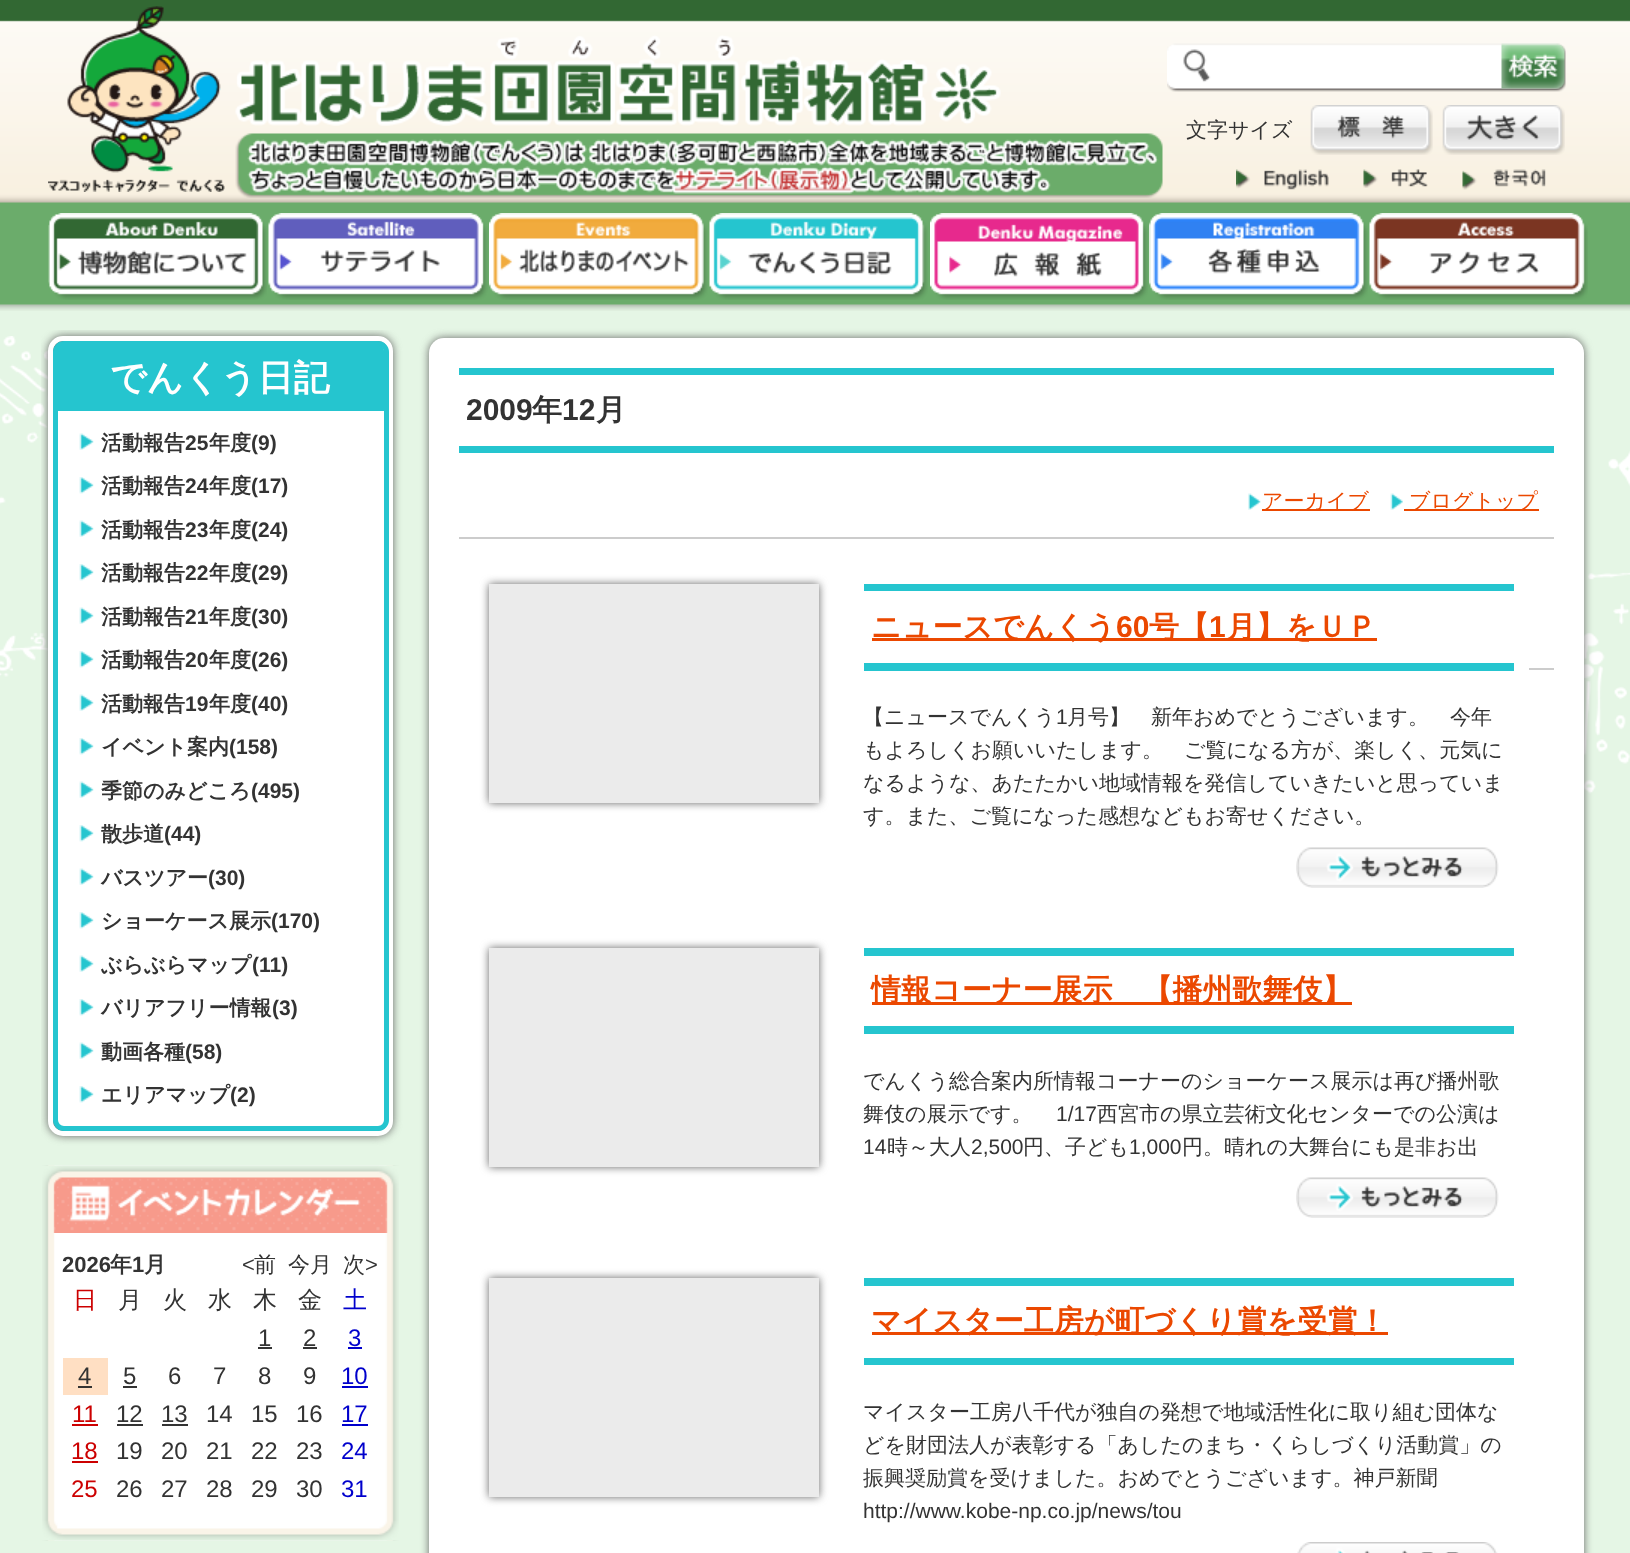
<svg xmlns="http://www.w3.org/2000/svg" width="1630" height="1553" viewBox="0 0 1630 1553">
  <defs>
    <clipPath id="clip1"><path d="M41 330h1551v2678H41z"/></clipPath>
  </defs>
  <rect width="100%" height="100%" fill="#e5f6e5"/>
  <image x="0" y="336" width="1630" height="458" href="img/1.png"/>
  <image x="0" y="0" width="1630" height="311" href="img/2.png"/>
  <image x="48" y="6" width="177" height="186" href="img/3.png"/>
  <image x="235" y="35" width="766" height="91" href="img/4.png"/>
  <image x="235" y="133" width="928" height="65" href="img/5.png"/>
  <image x="1167" y="43" width="399" height="49" href="img/6.png"/>
  <image x="1501" y="43" width="64" height="46" href="img/7.png"/>
  <image x="1310" y="105" width="123" height="50" href="img/8.png"/>
  <image x="1442" y="105" width="123" height="50" href="img/9.png"/>
  <image x="1236" y="169" width="93" height="21" href="img/10.png"/>
  <image x="1363" y="169" width="65" height="19" href="img/11.png"/>
  <image x="1462" y="169" width="84" height="21" href="img/12.png"/>
  <image x="48" y="213" width="219" height="87" href="img/13.png"/>
  <image x="268" y="213" width="220" height="87" href="img/14.png"/>
  <image x="489" y="213" width="219" height="87" href="img/15.png"/>
  <image x="709" y="213" width="219" height="87" href="img/16.png"/>
  <image x="930" y="213" width="218" height="87" href="img/17.png"/>
  <image x="1149" y="213" width="219" height="87" href="img/18.png"/>
  <image x="1369" y="213" width="219" height="87" href="img/19.png"/>
  <g clip-path="url(#clip1)">
    <rect x="48" y="336" width="345" height="800" rx="15" fill="#666" filter="blur(4px)"/>
  </g>
  <rect x="50.5" y="338.5" width="340" height="795" rx="12.5" fill="none" stroke="#fff" stroke-width="5"/>
  <rect x="55.5" y="343.5" width="331" height="785" rx="8.5" fill="#fff" stroke="#25c5cf" stroke-width="5"/>
  <path d="M63 345H378C381.5 345 384 347.5 384 351V411H57V351C57 347.5 59.5 345 63 345Z" fill="#25c5cf"/>
  <image x="79" y="433" width="15" height="17" href="img/20.png"/>
  <image x="79" y="477" width="15" height="17" href="img/21.png"/>
  <image x="79" y="520" width="15" height="17" href="img/20.png"/>
  <image x="79" y="564" width="15" height="17" href="img/21.png"/>
  <image x="79" y="607" width="15" height="17" href="img/20.png"/>
  <image x="79" y="651" width="15" height="17" href="img/21.png"/>
  <image x="79" y="694" width="15" height="17" href="img/20.png"/>
  <image x="79" y="738" width="15" height="17" href="img/21.png"/>
  <image x="79" y="781" width="15" height="17" href="img/20.png"/>
  <image x="79" y="825" width="15" height="17" href="img/21.png"/>
  <image x="79" y="868" width="15" height="17" href="img/20.png"/>
  <image x="79" y="912" width="15" height="17" href="img/21.png"/>
  <image x="79" y="955" width="15" height="17" href="img/20.png"/>
  <image x="79" y="999" width="15" height="17" href="img/21.png"/>
  <image x="79" y="1042" width="15" height="17" href="img/20.png"/>
  <image x="79" y="1086" width="15" height="17" href="img/21.png"/>
  <image x="42" y="1165" width="357" height="376" href="img/22.png"/>
  <image x="42" y="1165" width="357" height="68" href="img/23.png"/>
  <path d="M258 1347h14v2H258z" fill="#333"/>
  <path d="M303 1347h14v2H303z" fill="#333"/>
  <path d="M348 1347h14v2H348z" fill="#00c"/>
  <path d="M63 1358h45v37H63z" fill="#ffdfc3"/>
  <path d="M78 1386h14v2H78z" fill="#333"/>
  <path d="M123 1386h14v2H123z" fill="#333"/>
  <path d="M342 1386h26v2H342z" fill="#00c"/>
  <path d="M72 1424h26v2H72z" fill="#c00"/>
  <path d="M117 1424h26v2H117z" fill="#333"/>
  <path d="M162 1424h26v2H162z" fill="#333"/>
  <path d="M342 1424h26v2H342z" fill="#00c"/>
  <path d="M72 1461h26v2H72z" fill="#c00"/>
  <image x="42" y="1521" width="357" height="20" href="img/24.png"/>
  <rect x="429" y="338" width="1155" height="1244" rx="15" fill="#666" filter="blur(4.5px)"/>
  <rect x="429" y="338" width="1155" height="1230" rx="15" fill="#fff"/>
  <path d="M459 368h1095v7H459z" fill="#25c5cf"/>
  <path d="M459 446h1095v7H459z" fill="#25c5cf"/>
  <image x="1248" y="493" width="13" height="17" href="img/25.png"/>
  <path d="M1262 509h108v2H1262z" fill="#eb4800"/>
  <image x="1390" y="493" width="13" height="17" href="img/26.png"/>
  <path d="M1404 509h135v2H1404z" fill="#eb4800"/>
  <path d="M459 537h1095v2H459z" fill="#ccc"/>
  <path d="M489 584h330v219H489z" fill="#666" filter="blur(4px)"/>
  <path d="M489 584h330v219H489z" fill="#ebebeb"/>
  <path d="M864 584h650v7H864z" fill="#25c5cf"/>
  <path d="M864 663h650v8H864z" fill="#25c5cf"/>
  <path d="M872 638h505v3H872z" fill="#eb4800"/>
  <image x="1296" y="847" width="203" height="41" href="img/27.png"/>
  <path d="M489 948h330v219H489z" fill="#666" filter="blur(4px)"/>
  <path d="M489 948h330v219H489z" fill="#ebebeb"/>
  <path d="M864 948h650v8H864z" fill="#25c5cf"/>
  <path d="M864 1026h650v8H864z" fill="#25c5cf"/>
  <path d="M872 1002h480v3H872z" fill="#eb4800"/>
  <image x="1296" y="1177" width="203" height="41" href="img/27.png"/>
  <path d="M489 1278h330v219H489z" fill="#666" filter="blur(4px)"/>
  <path d="M489 1278h330v219H489z" fill="#ebebeb"/>
  <path d="M864 1278h650v8H864z" fill="#25c5cf"/>
  <path d="M864 1358h650v7H864z" fill="#25c5cf"/>
  <path d="M872 1332h516v3H872z" fill="#eb4800"/>
  <image x="1297" y="1542" width="201" height="11" href="img/28.png"/>
  <path d="M1529 668h25v2H1529z" fill="#ccc"/>
  <text x="1186" y="137" font-family="WenQuanYi Zen Hei" font-size="21" font-weight="500" fill="#333">文字サイズ</text>
  <text x="110" y="390" font-family="WenQuanYi Zen Hei" font-size="36" font-weight="bold" fill="#fff">でんくう日記</text>
  <text x="101" y="450" font-family="WenQuanYi Zen Hei" font-size="21" font-weight="bold" fill="#333">活動報告</text>
  <text x="185" y="450" font-family="Liberation Sans" font-size="21" font-weight="bold" fill="#333">25</text>
  <text x="209" y="450" font-family="WenQuanYi Zen Hei" font-size="21" font-weight="bold" fill="#333">年度</text>
  <text x="251" y="450" font-family="Liberation Sans" font-size="21" font-weight="bold" fill="#333">(9)</text>
  <text x="101" y="493" font-family="WenQuanYi Zen Hei" font-size="21" font-weight="bold" fill="#333">活動報告</text>
  <text x="185" y="493" font-family="Liberation Sans" font-size="21" font-weight="bold" fill="#333">24</text>
  <text x="209" y="493" font-family="WenQuanYi Zen Hei" font-size="21" font-weight="bold" fill="#333">年度</text>
  <text x="251" y="493" font-family="Liberation Sans" font-size="21" font-weight="bold" fill="#333">(17)</text>
  <text x="101" y="537" font-family="WenQuanYi Zen Hei" font-size="21" font-weight="bold" fill="#333">活動報告</text>
  <text x="185" y="537" font-family="Liberation Sans" font-size="21" font-weight="bold" fill="#333">23</text>
  <text x="209" y="537" font-family="WenQuanYi Zen Hei" font-size="21" font-weight="bold" fill="#333">年度</text>
  <text x="251" y="537" font-family="Liberation Sans" font-size="21" font-weight="bold" fill="#333">(24)</text>
  <text x="101" y="580" font-family="WenQuanYi Zen Hei" font-size="21" font-weight="bold" fill="#333">活動報告</text>
  <text x="185" y="580" font-family="Liberation Sans" font-size="21" font-weight="bold" fill="#333">22</text>
  <text x="209" y="580" font-family="WenQuanYi Zen Hei" font-size="21" font-weight="bold" fill="#333">年度</text>
  <text x="251" y="580" font-family="Liberation Sans" font-size="21" font-weight="bold" fill="#333">(29)</text>
  <text x="101" y="624" font-family="WenQuanYi Zen Hei" font-size="21" font-weight="bold" fill="#333">活動報告</text>
  <text x="185" y="624" font-family="Liberation Sans" font-size="21" font-weight="bold" fill="#333">21</text>
  <text x="209" y="624" font-family="WenQuanYi Zen Hei" font-size="21" font-weight="bold" fill="#333">年度</text>
  <text x="251" y="624" font-family="Liberation Sans" font-size="21" font-weight="bold" fill="#333">(30)</text>
  <text x="101" y="667" font-family="WenQuanYi Zen Hei" font-size="21" font-weight="bold" fill="#333">活動報告</text>
  <text x="185" y="667" font-family="Liberation Sans" font-size="21" font-weight="bold" fill="#333">20</text>
  <text x="209" y="667" font-family="WenQuanYi Zen Hei" font-size="21" font-weight="bold" fill="#333">年度</text>
  <text x="251" y="667" font-family="Liberation Sans" font-size="21" font-weight="bold" fill="#333">(26)</text>
  <text x="101" y="711" font-family="WenQuanYi Zen Hei" font-size="21" font-weight="bold" fill="#333">活動報告</text>
  <text x="185" y="711" font-family="Liberation Sans" font-size="21" font-weight="bold" fill="#333">19</text>
  <text x="209" y="711" font-family="WenQuanYi Zen Hei" font-size="21" font-weight="bold" fill="#333">年度</text>
  <text x="251" y="711" font-family="Liberation Sans" font-size="21" font-weight="bold" fill="#333">(40)</text>
  <text x="101" y="754" font-family="WenQuanYi Zen Hei" font-size="21" font-weight="bold" fill="#333">イベント案内</text>
  <text x="229" y="754" font-family="Liberation Sans" font-size="21" font-weight="bold" fill="#333">(158)</text>
  <text x="101" y="798" font-family="WenQuanYi Zen Hei" font-size="21" font-weight="bold" fill="#333">季節のみどころ</text>
  <text x="251" y="798" font-family="Liberation Sans" font-size="21" font-weight="bold" fill="#333">(495)</text>
  <text x="101" y="841" font-family="WenQuanYi Zen Hei" font-size="21" font-weight="bold" fill="#333">散歩道</text>
  <text x="164" y="841" font-family="Liberation Sans" font-size="21" font-weight="bold" fill="#333">(44)</text>
  <text x="101" y="885" font-family="WenQuanYi Zen Hei" font-size="21" font-weight="bold" fill="#333">バスツアー</text>
  <text x="208" y="885" font-family="Liberation Sans" font-size="21" font-weight="bold" fill="#333">(30)</text>
  <text x="101" y="928" font-family="WenQuanYi Zen Hei" font-size="21" font-weight="bold" fill="#333">ショーケース展示</text>
  <text x="271" y="928" font-family="Liberation Sans" font-size="21" font-weight="bold" fill="#333">(170)</text>
  <text x="101" y="972" font-family="WenQuanYi Zen Hei" font-size="21" font-weight="bold" fill="#333">ぶらぶらマップ</text>
  <text x="252" y="972" font-family="Liberation Sans" font-size="21" font-weight="bold" fill="#333">(11)</text>
  <text x="101" y="1015" font-family="WenQuanYi Zen Hei" font-size="21" font-weight="bold" fill="#333">バリアフリー情報</text>
  <text x="272" y="1015" font-family="Liberation Sans" font-size="21" font-weight="bold" fill="#333">(3)</text>
  <text x="101" y="1059" font-family="WenQuanYi Zen Hei" font-size="21" font-weight="bold" fill="#333">動画各種</text>
  <text x="185" y="1059" font-family="Liberation Sans" font-size="21" font-weight="bold" fill="#333">(58)</text>
  <text x="101" y="1102" font-family="WenQuanYi Zen Hei" font-size="21" font-weight="bold" fill="#333">エリアマップ</text>
  <text x="230" y="1102" font-family="Liberation Sans" font-size="21" font-weight="bold" fill="#333">(2)</text>
  <text x="62" y="1272" font-family="Liberation Sans" font-size="22" font-weight="bold" fill="#333">2026</text>
  <text x="110" y="1272" font-family="WenQuanYi Zen Hei" font-size="22" font-weight="bold" fill="#333">年</text>
  <text x="132" y="1272" font-family="Liberation Sans" font-size="22" font-weight="bold" fill="#333">1</text>
  <text x="144" y="1272" font-family="WenQuanYi Zen Hei" font-size="22" font-weight="bold" fill="#333">月</text>
  <text x="242" y="1272" font-family="Liberation Sans" font-size="22" fill="#333">&lt;</text>
  <g font-family="WenQuanYi Zen Hei" font-size="22" font-weight="500" fill="#333">
    <text x="254" y="1272">前</text>
    <text x="288" y="1272">今月</text>
    <text x="343" y="1272">次</text>
  </g>
  <text x="365" y="1272" font-family="Liberation Sans" font-size="22" fill="#333">&gt;</text>
  <text x="73" y="1308" font-family="WenQuanYi Zen Hei" font-size="24" font-weight="500" fill="#c00">日</text>
  <g font-family="WenQuanYi Zen Hei" font-size="24" font-weight="500" fill="#333">
    <text x="118" y="1308">月</text>
    <text x="163" y="1308">火</text>
    <text x="208" y="1308">水</text>
    <text x="253" y="1308">木</text>
    <text x="298" y="1308">金</text>
  </g>
  <text x="343" y="1308" font-family="WenQuanYi Zen Hei" font-size="24" font-weight="500" fill="#00c">土</text>
  <g font-family="Liberation Sans" font-size="24" fill="#333">
    <text x="258" y="1346">1</text>
    <text x="303" y="1346">2</text>
  </g>
  <text x="348" y="1346" font-family="Liberation Sans" font-size="24" fill="#00c">3</text>
  <g font-family="Liberation Sans" font-size="24" fill="#333">
    <text x="78" y="1384">4</text>
    <text x="123" y="1384">5</text>
    <text x="168" y="1384">6</text>
    <text x="213" y="1384">7</text>
    <text x="258" y="1384">8</text>
    <text x="303" y="1384">9</text>
  </g>
  <text x="341" y="1384" font-family="Liberation Sans" font-size="24" fill="#00c">10</text>
  <text x="72" y="1422" font-family="Liberation Sans" font-size="24" fill="#c00">11</text>
  <g font-family="Liberation Sans" font-size="24" fill="#333">
    <text x="116" y="1422">12</text>
    <text x="161" y="1422">13</text>
    <text x="206" y="1422">14</text>
    <text x="251" y="1422">15</text>
    <text x="296" y="1422">16</text>
  </g>
  <text x="341" y="1422" font-family="Liberation Sans" font-size="24" fill="#00c">17</text>
  <text x="71" y="1459" font-family="Liberation Sans" font-size="24" fill="#c00">18</text>
  <g font-family="Liberation Sans" font-size="24" fill="#333">
    <text x="116" y="1459">19</text>
    <text x="161" y="1459">20</text>
    <text x="206" y="1459">21</text>
    <text x="251" y="1459">22</text>
    <text x="296" y="1459">23</text>
  </g>
  <text x="341" y="1459" font-family="Liberation Sans" font-size="24" fill="#00c">24</text>
  <text x="71" y="1497" font-family="Liberation Sans" font-size="24" fill="#c00">25</text>
  <g font-family="Liberation Sans" font-size="24" fill="#333">
    <text x="116" y="1497">26</text>
    <text x="161" y="1497">27</text>
    <text x="206" y="1497">28</text>
    <text x="251" y="1497">29</text>
    <text x="296" y="1497">30</text>
  </g>
  <text x="341" y="1497" font-family="Liberation Sans" font-size="24" fill="#00c">31</text>
  <text x="466" y="420" font-family="Liberation Sans" font-size="30" font-weight="bold" fill="#333">2009</text>
  <text x="532" y="420" font-family="WenQuanYi Zen Hei" font-size="30" font-weight="bold" fill="#333">年</text>
  <text x="562" y="420" font-family="Liberation Sans" font-size="30" font-weight="bold" fill="#333">12</text>
  <text x="596" y="420" font-family="WenQuanYi Zen Hei" font-size="30" font-weight="bold" fill="#333">月</text>
  <g font-family="WenQuanYi Zen Hei" font-size="21" font-weight="500" fill="#eb4800">
    <text x="1262" y="508">アーカイブ</text>
    <text x="1409" y="508">ブログトップ</text>
  </g>
  <text x="871" y="637" font-family="WenQuanYi Zen Hei" font-size="30" font-weight="bold" fill="#eb4800">ニュースでんくう</text>
  <text x="1116" y="637" font-family="Liberation Sans" font-size="30" font-weight="bold" fill="#eb4800">60</text>
  <text x="1149" y="637" font-family="WenQuanYi Zen Hei" font-size="30" font-weight="bold" fill="#eb4800">号【</text>
  <text x="1209" y="637" font-family="Liberation Sans" font-size="30" font-weight="bold" fill="#eb4800">1</text>
  <text x="1226" y="637" font-family="WenQuanYi Zen Hei" font-size="30" font-weight="bold" fill="#eb4800">月】をＵＰ</text>
  <text x="863" y="724" font-family="WenQuanYi Zen Hei" font-size="21" font-weight="500" fill="#333">【ニュースでんくう</text>
  <text x="1056" y="724" font-family="Liberation Sans" font-size="21" fill="#333">1</text>
  <g font-family="WenQuanYi Zen Hei" font-size="21" font-weight="500" fill="#333">
    <text x="1067" y="724">月号】　新年おめでとうございます。　今年</text>
    <text x="863" y="757">もよろしくお願いいたします。　ご覧になる方が、楽しく、元気に</text>
    <text x="863" y="790">なるような、あたたかい地域情報を発信していきたいと思っていま</text>
    <text x="863" y="823">す。また、ご覧になった感想などもお寄せください。</text>
  </g>
  <text x="871" y="1000" font-family="WenQuanYi Zen Hei" font-size="30" font-weight="bold" fill="#eb4800">情報コーナー展示　【播州歌舞伎】</text>
  <g font-family="WenQuanYi Zen Hei" font-size="21" font-weight="500" fill="#333">
    <text x="863" y="1088">でんくう総合案内所情報コーナーのショーケース展示は再び播州歌</text>
    <text x="863" y="1121">舞伎の展示です。</text>
  </g>
  <text x="1056" y="1121" font-family="Liberation Sans" font-size="21" fill="#333">1/17</text>
  <text x="1097" y="1121" font-family="WenQuanYi Zen Hei" font-size="21" font-weight="500" fill="#333">西宮市の県立芸術文化センターでの公演は</text>
  <text x="863" y="1154" font-family="Liberation Sans" font-size="21" fill="#333">14</text>
  <text x="887" y="1154" font-family="WenQuanYi Zen Hei" font-size="21" font-weight="500" fill="#333">時～大人</text>
  <text x="971" y="1154" font-family="Liberation Sans" font-size="21" fill="#333">2,500</text>
  <text x="1023" y="1154" font-family="WenQuanYi Zen Hei" font-size="21" font-weight="500" fill="#333">円、子ども</text>
  <text x="1129" y="1154" font-family="Liberation Sans" font-size="21" fill="#333">1,000</text>
  <text x="1182" y="1154" font-family="WenQuanYi Zen Hei" font-size="21" font-weight="500" fill="#333">円。晴れの大舞台にも是非お出</text>
  <text x="871" y="1331" font-family="WenQuanYi Zen Hei" font-size="30" font-weight="bold" fill="#eb4800">マイスター工房が町づくり賞を受賞！</text>
  <g font-family="WenQuanYi Zen Hei" font-size="21" font-weight="500" fill="#333">
    <text x="863" y="1419">マイスター工房八千代が独自の発想で地域活性化に取り組む団体な</text>
    <text x="863" y="1452">どを財団法人が表彰する「あしたのまち・くらしづくり活動賞」の</text>
    <text x="863" y="1485">振興奨励賞を受けました。おめでとうございます。神戸新聞</text>
  </g>
  <text x="863" y="1518" font-family="Liberation Sans" font-size="21" fill="#333">http://www.kobe-np.co.jp/news/tou</text>
</svg>
